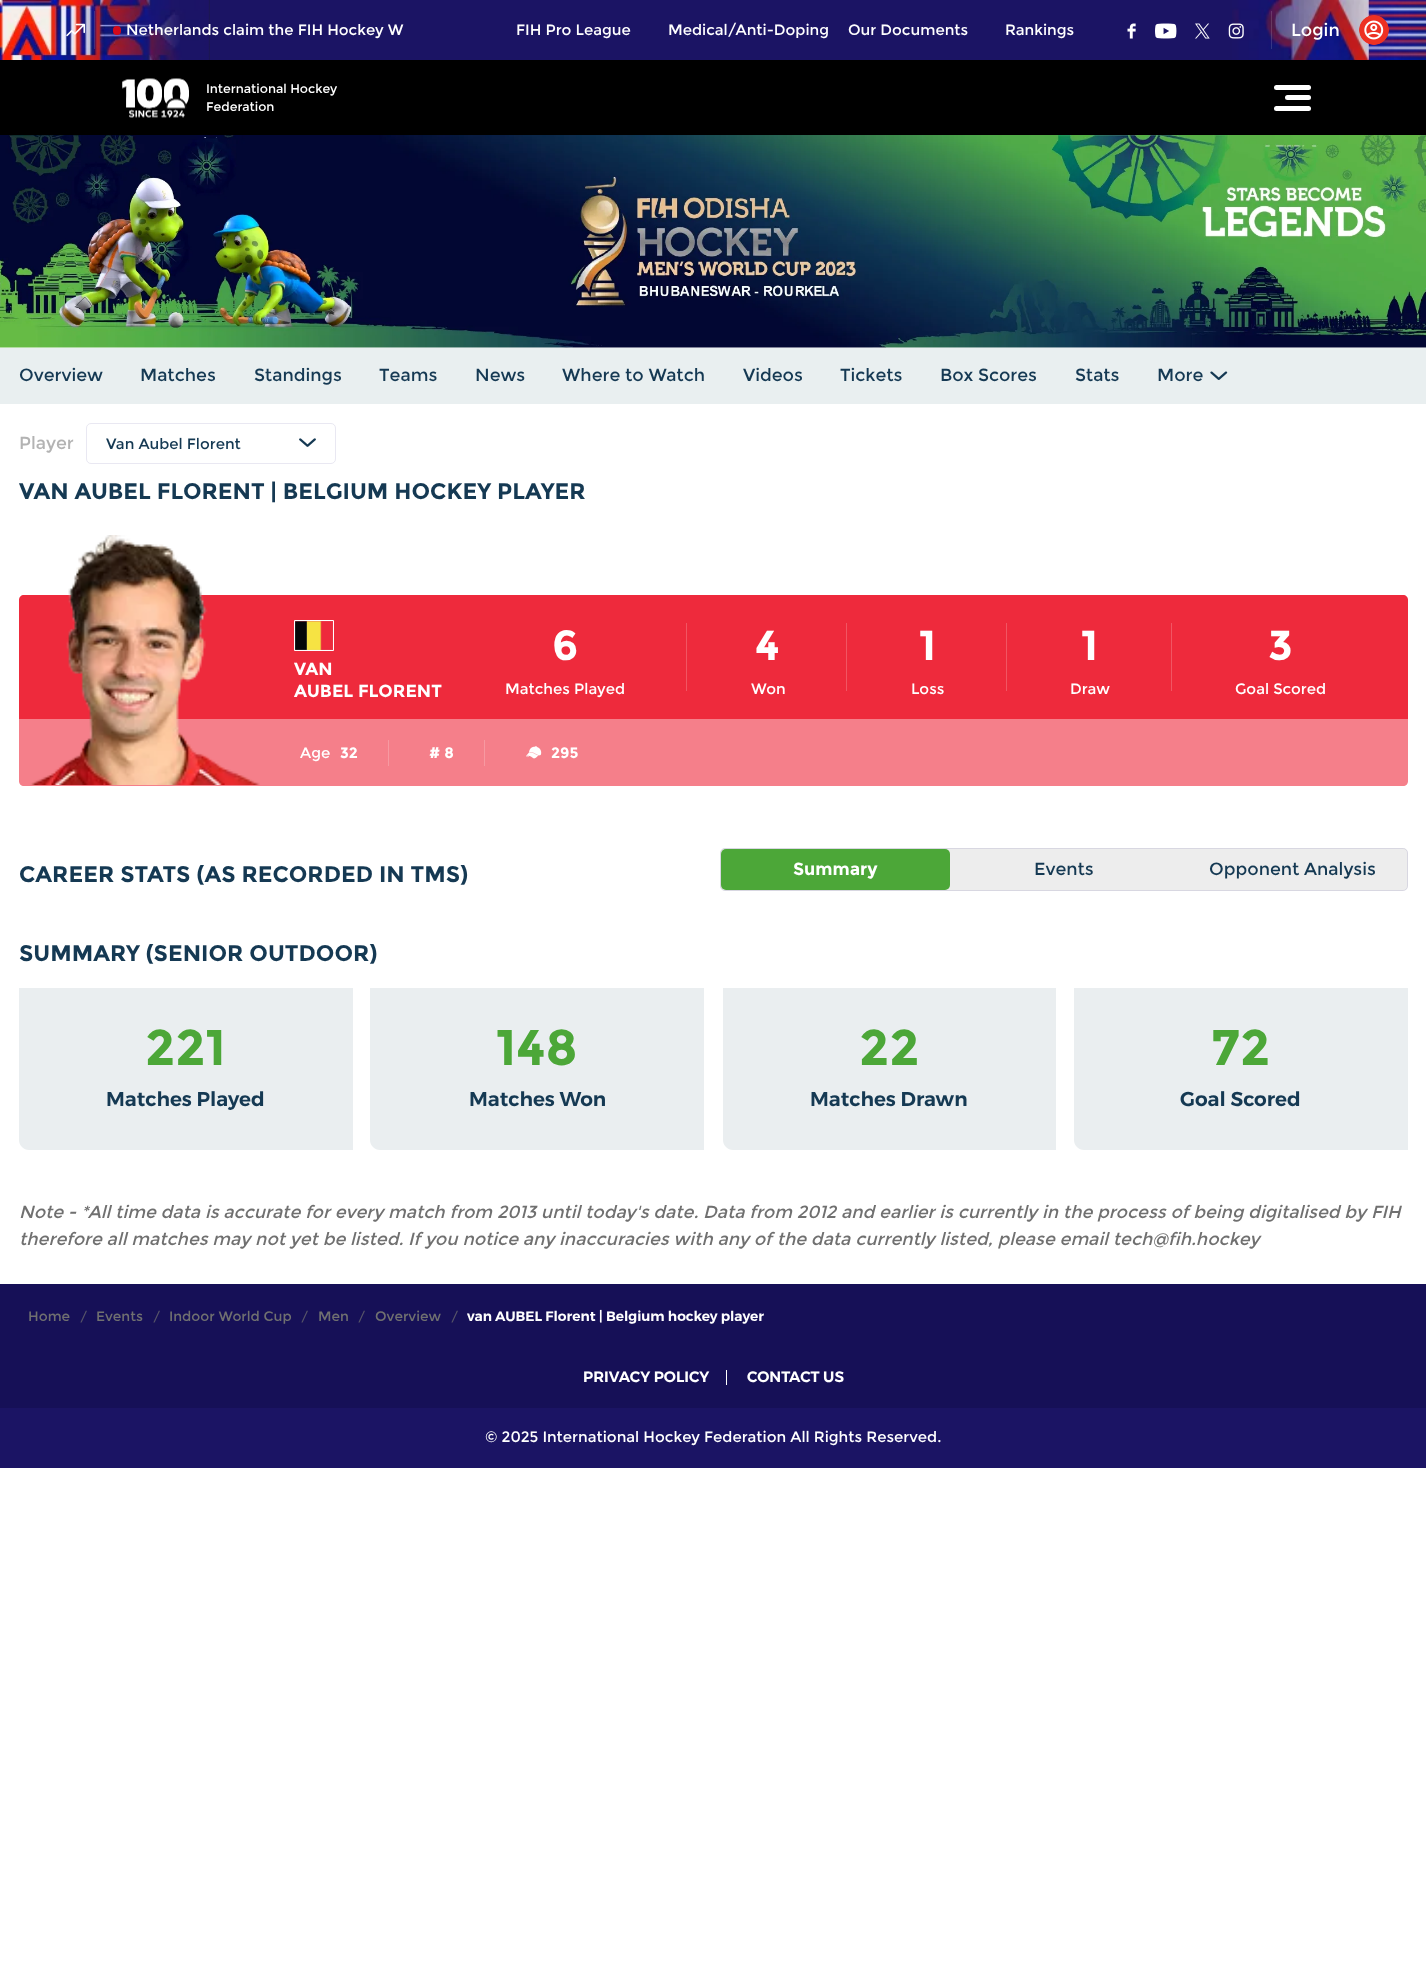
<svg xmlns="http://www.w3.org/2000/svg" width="1426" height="1967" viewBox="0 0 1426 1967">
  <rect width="100%" height="100%" fill="#fff"/>
  <path d="M209 0h1023v60H209z" fill="#1b1464"/>
  <image x="0" y="0" width="210" height="60" href="img/1.png"/>
  <image x="1232" y="0" width="194" height="60" href="img/2.png"/>
  <path d="M94 11h1v38H94z" fill="#f4f4f426"/>
  <image x="66" y="23" width="19" height="14" href="img/3.png"/>
  <rect x="113" y="26" width="8" height="9" rx="4" fill="#d2091b"/>
  <image x="1127" y="23" width="9" height="16" href="img/4.png"/>
  <image x="1155" y="23" width="22" height="16" href="img/5.png"/>
  <image x="1195" y="23" width="15" height="16" href="img/6.png"/>
  <image x="1228" y="23" width="16" height="16" href="img/7.png"/>
  <path d="M1271 11h1v38H1271z" fill="#f4f4f426"/>
  <image x="1359" y="15" width="30" height="30" href="img/8.png"/>
  <path d="M0 60h1426v75H0z" fill="#000"/>
  <image x="122" y="78" width="67" height="40" href="img/9.png"/>
  <rect x="1274" y="85" width="37" height="5" rx="2.5" fill="#fff"/>
  <rect x="1285" y="95" width="26" height="5" rx="2.5" fill="#fff"/>
  <rect x="1274" y="106" width="37" height="5" rx="2.5" fill="#fff"/>
  <image x="0" y="135" width="1426" height="213" href="img/10.png"/>
  <path d="M0 348h1426v56H0z" fill="#e9eff0"/>
  <image x="1210" y="371" width="18" height="9" href="img/11.png"/>
  <rect x="86.5" y="423.5" width="249" height="40" rx="4.5" fill="none" stroke="#e9e8f2"/>
  <image x="299" y="438" width="17" height="9" href="img/12.png"/>
  <path d="M24 595H1403C1406 595 1408 597 1408 600V719H19V600C19 597 21 595 24 595Z" fill="#ee2a3c"/>
  <path d="M686 623h1v68H686z" fill="#f15563"/>
  <path d="M846 623h1v68H846z" fill="#f15563"/>
  <path d="M1006 623h1v68H1006z" fill="#f15563"/>
  <path d="M1171 623h1v68H1171z" fill="#f15563"/>
  <path d="M19 719H1408V781C1408 784 1406 786 1403 786H24C21 786 19 784 19 781Z" fill="#f57f8a"/>
  <path d="M388 740h1v26H388z" fill="#f799a1"/>
  <path d="M484 740h1v26H484z" fill="#f799a1"/>
  <image x="526" y="746" width="16" height="13" href="img/13.png"/>
  <image x="30" y="535" width="230" height="250" href="img/14.png"/>
  <path d="M294.5 620.5h39v30H294.5z" fill="none" stroke="#fff"/>
  <image x="295" y="621" width="38" height="29" href="img/15.png"/>
  <rect x="720" y="848" width="688" height="43" rx="5" fill="#ededed"/>
  <rect x="720.5" y="848.5" width="687" height="42" rx="4.5" fill="none" stroke="#231b7d1a"/>
  <rect x="721" y="849" width="229" height="41" rx="5" fill="#4ca738"/>
  <path d="M19 988H353V1150H29C23.5 1150 19 1145.5 19 1140Z" fill="#eaeef0"/>
  <path d="M370 988H704V1150H380C374.5 1150 370 1145.5 370 1140Z" fill="#eaeef0"/>
  <path d="M723 988H1056V1150H733C727.5 1150 723 1145.5 723 1140Z" fill="#eaeef0"/>
  <path d="M1074 988H1408V1150H1084C1078.5 1150 1074 1145.5 1074 1140Z" fill="#eaeef0"/>
  <path d="M0 1284h1426v124H0z" fill="#161057"/>
  <path d="M726 1370h1v15H726z" fill="#fff"/>
  <path d="M0 1408h1426v60H0z" fill="#1b1464"/>
  <g font-family="Montserrat" font-size="15" fill="#fff">
    <text x="126" y="35">Netherlands claim the FIH Hockey W</text>
    <text x="516" y="35">FIH Pro League</text>
    <text x="668" y="35">Medical/Anti-Doping</text>
    <text x="848" y="35">Our Documents</text>
    <text x="1005" y="35">Rankings</text>
  </g>
  <text x="1291" y="36" font-family="Montserrat" font-size="17.5" fill="#fff">Login</text>
  <g font-family="Montserrat" font-size="12.5" fill="#fff">
    <text x="206" y="93">International Hockey</text>
    <text x="206" y="111">Federation</text>
  </g>
  <g font-family="Montserrat" font-size="17.5" fill="#153953">
    <text x="19" y="381">Overview</text>
    <text x="140" y="381">Matches</text>
    <text x="254" y="381">Standings</text>
    <text x="379" y="381">Teams</text>
    <text x="475" y="381">News</text>
    <text x="562" y="381">Where to Watch</text>
    <text x="743" y="381">Videos</text>
    <text x="840" y="381">Tickets</text>
    <text x="940" y="381">Box Scores</text>
    <text x="1075" y="381">Stats</text>
    <text x="1157" y="381">More</text>
  </g>
  <text x="19" y="449" font-family="Montserrat" font-size="17.5" fill="#b3b3b3">Player</text>
  <text x="106" y="449" font-family="Montserrat" font-size="15" fill="#153953">Van Aubel Florent</text>
  <text x="19" y="499" font-family="Montserrat" font-size="22.5" font-weight="bold" fill="#153953">VAN AUBEL FLORENT | BELGIUM HOCKEY PLAYER</text>
  <text x="552" y="660" font-family="Montserrat" font-size="42" font-weight="bold" fill="#fff">6</text>
  <text x="505" y="694" font-family="Montserrat" font-size="15" fill="#fff">Matches Played</text>
  <text x="755" y="660" font-family="Montserrat" font-size="42" font-weight="bold" fill="#fff">4</text>
  <text x="751" y="694" font-family="Montserrat" font-size="15" fill="#fff">Won</text>
  <text x="919" y="660" font-family="Montserrat" font-size="42" font-weight="bold" fill="#fff">1</text>
  <text x="911" y="694" font-family="Montserrat" font-size="15" fill="#fff">Loss</text>
  <text x="1081" y="660" font-family="Montserrat" font-size="42" font-weight="bold" fill="#fff">1</text>
  <text x="1070" y="694" font-family="Montserrat" font-size="15" fill="#fff">Draw</text>
  <text x="1268" y="660" font-family="Montserrat" font-size="42" font-weight="bold" fill="#fff">3</text>
  <g font-family="Montserrat" font-size="15" fill="#fff">
    <text x="1235" y="694">Goal Scored</text>
    <text x="300" y="758">Age</text>
  </g>
  <g font-family="Montserrat" font-size="15" font-weight="bold" fill="#fff">
    <text x="340" y="758">32</text>
    <text x="429" y="758"># 8</text>
    <text x="551" y="758">295</text>
  </g>
  <g font-family="Montserrat" font-size="17.5" font-weight="bold" fill="#fff">
    <text x="294" y="675">VAN</text>
    <text x="294" y="697">AUBEL FLORENT</text>
  </g>
  <text x="19" y="882" font-family="Montserrat" font-size="22.5" font-weight="bold" fill="#153953">CAREER STATS (AS RECORDED IN TMS)</text>
  <text x="793" y="875" font-family="Montserrat" font-size="17.5" font-weight="bold" fill="#fff">Summary</text>
  <g font-family="Montserrat" font-size="17.5" fill="#153953">
    <text x="1034" y="875">Events</text>
    <text x="1209" y="875">Opponent Analysis</text>
  </g>
  <text x="19" y="961" font-family="Montserrat" font-size="22.5" font-weight="bold" fill="#153953">SUMMARY (SENIOR OUTDOOR)</text>
  <text x="145" y="1065" font-family="Montserrat" font-size="50" font-weight="bold" fill="#4ca738">221</text>
  <text x="106" y="1106" font-family="Montserrat" font-size="20" font-weight="600" fill="#153953">Matches Played</text>
  <text x="496" y="1065" font-family="Montserrat" font-size="50" font-weight="bold" fill="#4ca738">148</text>
  <text x="469" y="1106" font-family="Montserrat" font-size="20" font-weight="600" fill="#153953">Matches Won</text>
  <text x="859" y="1065" font-family="Montserrat" font-size="50" font-weight="bold" fill="#4ca738">22</text>
  <text x="810" y="1106" font-family="Montserrat" font-size="20" font-weight="600" fill="#153953">Matches Drawn</text>
  <text x="1211" y="1065" font-family="Montserrat" font-size="50" font-weight="bold" fill="#4ca738">72</text>
  <text x="1180" y="1106" font-family="Montserrat" font-size="20" font-weight="600" fill="#153953">Goal Scored</text>
  <g font-family="Montserrat" font-size="17.5" font-style="italic" fill="#707070">
    <text x="19" y="1218">Note - *All time data is accurate for every match from 2013 until today's date. Data from 2012 and earlier is currently in the process of being digitalised by FIH</text>
    <text x="19" y="1245">therefore all matches may not yet be listed. If you notice any inaccuracies with any of the data currently listed, please email tech@fih.hockey</text>
  </g>
  <text x="28" y="1321" font-family="Montserrat" font-size="13.75" fill="#707070">Home</text>
  <text x="80" y="1321" font-family="Montserrat" font-size="12.5" fill="#575569">/</text>
  <text x="96" y="1321" font-family="Montserrat" font-size="13.75" fill="#707070">Events</text>
  <text x="153" y="1321" font-family="Montserrat" font-size="12.5" fill="#575569">/</text>
  <text x="169" y="1321" font-family="Montserrat" font-size="13.75" fill="#707070">Indoor World Cup</text>
  <text x="301" y="1321" font-family="Montserrat" font-size="12.5" fill="#575569">/</text>
  <text x="318" y="1321" font-family="Montserrat" font-size="13.75" fill="#707070">Men</text>
  <text x="358" y="1321" font-family="Montserrat" font-size="12.5" fill="#575569">/</text>
  <text x="375" y="1321" font-family="Montserrat" font-size="13.75" fill="#707070">Overview</text>
  <text x="451" y="1321" font-family="Montserrat" font-size="12.5" fill="#575569">/</text>
  <text x="467" y="1321" font-family="Montserrat" font-size="13.75" font-weight="600" fill="#fff">van AUBEL Florent | Belgium hockey player</text>
  <g font-family="Montserrat" font-size="15" font-weight="600" fill="#fff">
    <text x="583" y="1382">PRIVACY POLICY</text>
    <text x="747" y="1382">CONTACT US</text>
  </g>
  <text x="485" y="1442" font-family="Montserrat" font-size="15" fill="#fff">© 2025 International Hockey Federation All Rights Reserved.</text>
</svg>
